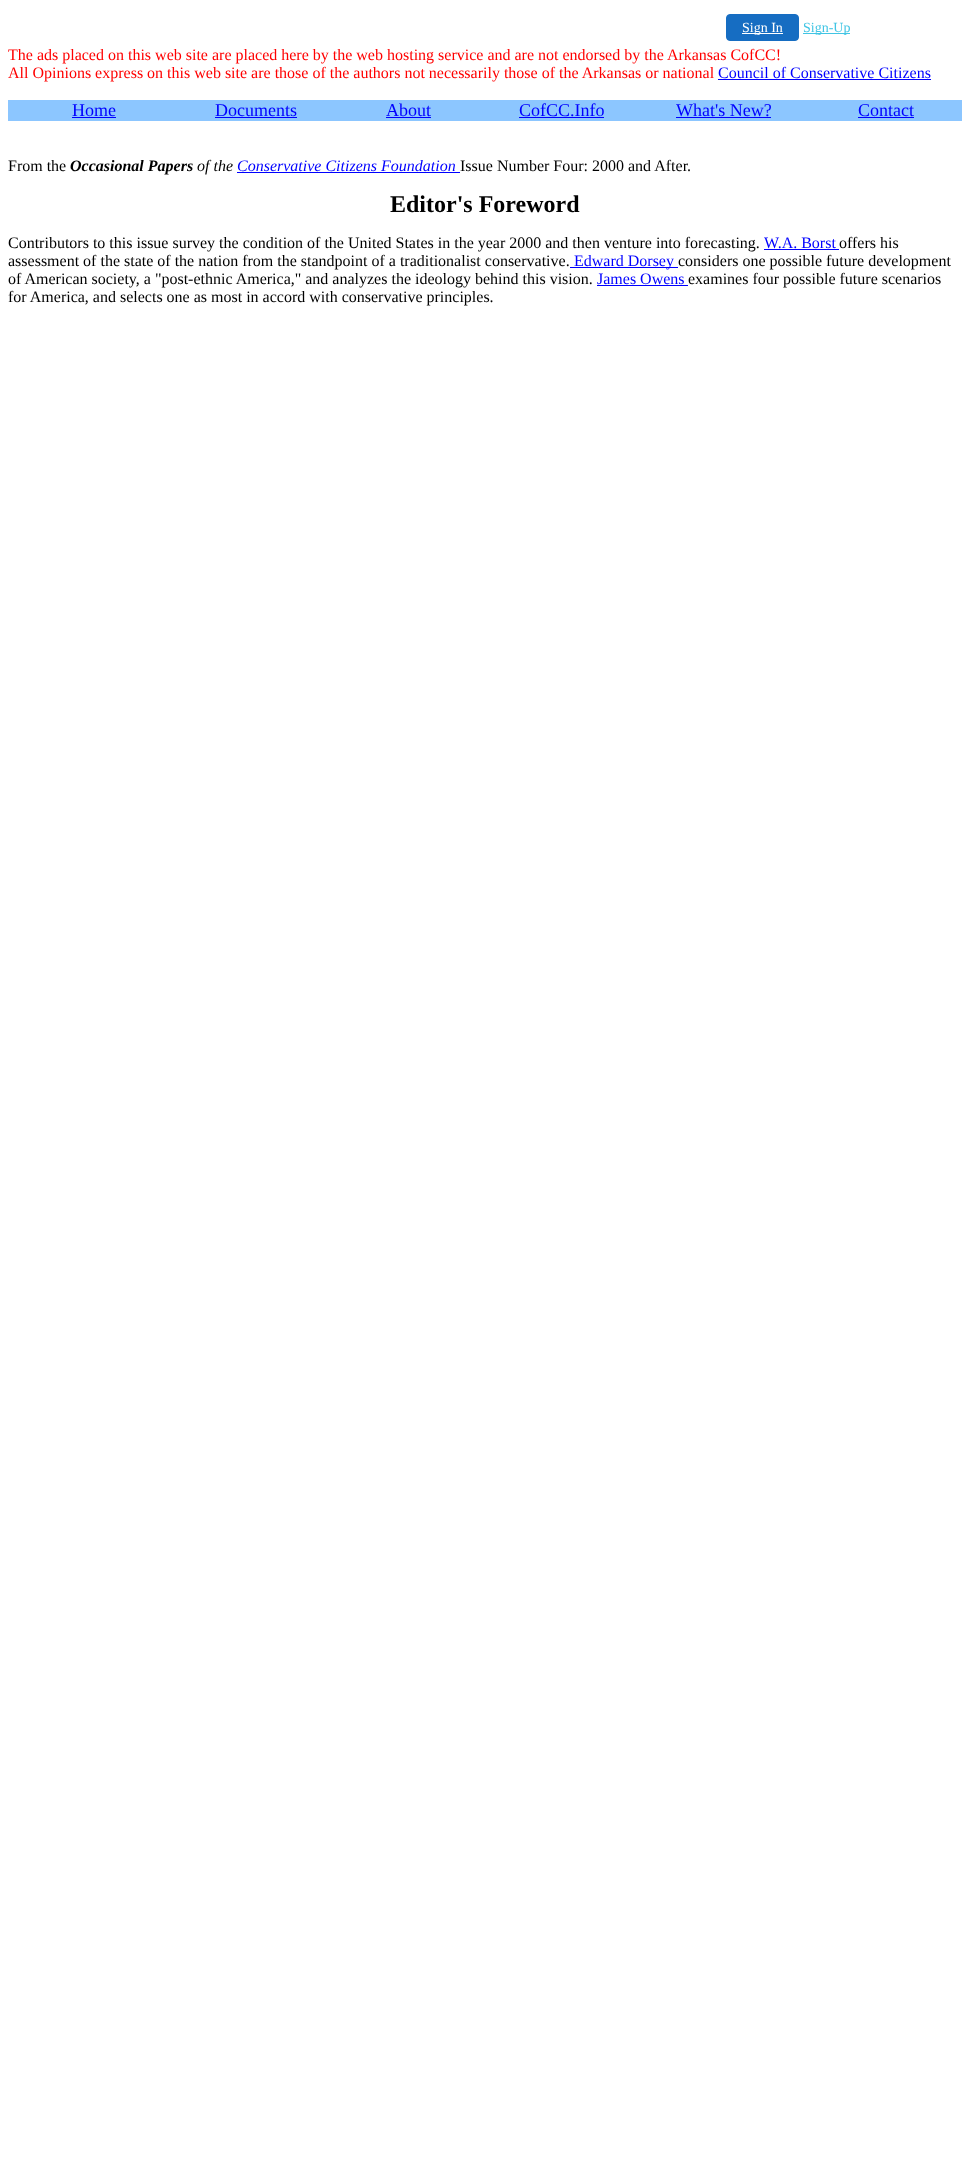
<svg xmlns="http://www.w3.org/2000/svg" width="970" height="2167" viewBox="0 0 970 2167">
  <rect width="100%" height="100%" fill="#fff"/>
  <rect x="726.5" y="14.5" width="72" height="26" rx="3.5" fill="#166dc2" stroke="#166dc2"/>
  <path d="M742 33h41v1H742z" fill="#fff"/>
  <path d="M803 33h47v1H803z" fill="#41c5e4"/>
  <path d="M718 79h213v1H718z" fill="#00f"/>
  <path d="M8 100h954v21H8z" fill="#8cc6ff"/>
  <path d="M72 117h44v1H72z" fill="#00f"/>
  <path d="M215 117h82v1H215z" fill="#00f"/>
  <path d="M386 117h45v1H386z" fill="#00f"/>
  <path d="M519 117h85v1H519z" fill="#00f"/>
  <path d="M676 117h95v1H676z" fill="#00f"/>
  <path d="M858 117h56v1H858z" fill="#00f"/>
  <path d="M237 172h223v1H237z" fill="#00f"/>
  <path d="M764 249h75v1H764z" fill="#00f"/>
  <path d="M570 267h108v1H570z" fill="#00f"/>
  <path d="M597 285h91v1H597z" fill="#00f"/>
  <text x="742" y="32" font-family="Liberation Serif" font-size="14" fill="#fff">Sign In</text>
  <text x="803" y="32" font-family="Liberation Serif" font-size="14" fill="#41c5e4">Sign-Up</text>
  <g font-family="Liberation Serif" font-size="16" fill="#f00">
    <text x="8" y="60">The ads placed on this web site are placed here by the web hosting service and are not endorsed by the Arkansas CofCC!</text>
    <text x="8" y="78">All Opinions express on this web site are those of the authors not necessarily those of the Arkansas or national</text>
  </g>
  <text x="718" y="78" font-family="Liberation Serif" font-size="16" fill="#00f">Council of Conservative Citizens</text>
  <g font-family="Liberation Serif" font-size="18" fill="#00f">
    <text x="72" y="116">Home</text>
    <text x="215" y="116">Documents</text>
    <text x="386" y="116">About</text>
    <text x="519" y="116">CofCC.Info</text>
    <text x="676" y="116">What's New?</text>
    <text x="858" y="116">Contact</text>
  </g>
  <text x="8" y="171" font-family="Liberation Serif" font-size="16" fill="#000">From the</text>
  <text x="70" y="171" font-family="Liberation Serif" font-size="16" font-weight="bold" font-style="italic" fill="#000">Occasional Papers</text>
  <text x="197" y="171" font-family="Liberation Serif" font-size="16" font-style="italic" fill="#000">of the</text>
  <text x="237" y="171" font-family="Liberation Serif" font-size="16" font-style="italic" fill="#00f">Conservative Citizens Foundation</text>
  <text x="460" y="171" font-family="Liberation Serif" font-size="16" fill="#000">Issue Number Four: 2000 and After.</text>
  <text x="390" y="212" font-family="Liberation Serif" font-size="24" font-weight="bold" fill="#000">Editor's Foreword</text>
  <text x="8" y="248" font-family="Liberation Serif" font-size="16" fill="#000">Contributors to this issue survey the condition of the United States in the year 2000 and then venture into forecasting.</text>
  <text x="764" y="248" font-family="Liberation Serif" font-size="16" fill="#00f">W.A. Borst</text>
  <g font-family="Liberation Serif" font-size="16" fill="#000">
    <text x="839" y="248">offers his</text>
    <text x="8" y="266">assessment of the state of the nation from the standpoint of a traditionalist conservative.</text>
  </g>
  <text x="574" y="266" font-family="Liberation Serif" font-size="16" fill="#00f">Edward Dorsey</text>
  <g font-family="Liberation Serif" font-size="16" fill="#000">
    <text x="678" y="266">considers one possible future development</text>
    <text x="8" y="284">of American society, a "post-ethnic America," and analyzes the ideology behind this vision.</text>
  </g>
  <text x="597" y="284" font-family="Liberation Serif" font-size="16" fill="#00f">James Owens</text>
  <g font-family="Liberation Serif" font-size="16" fill="#000">
    <text x="688" y="284">examines four possible future scenarios</text>
    <text x="8" y="302">for America, and selects one as most in accord with conservative principles.</text>
  </g>
</svg>
